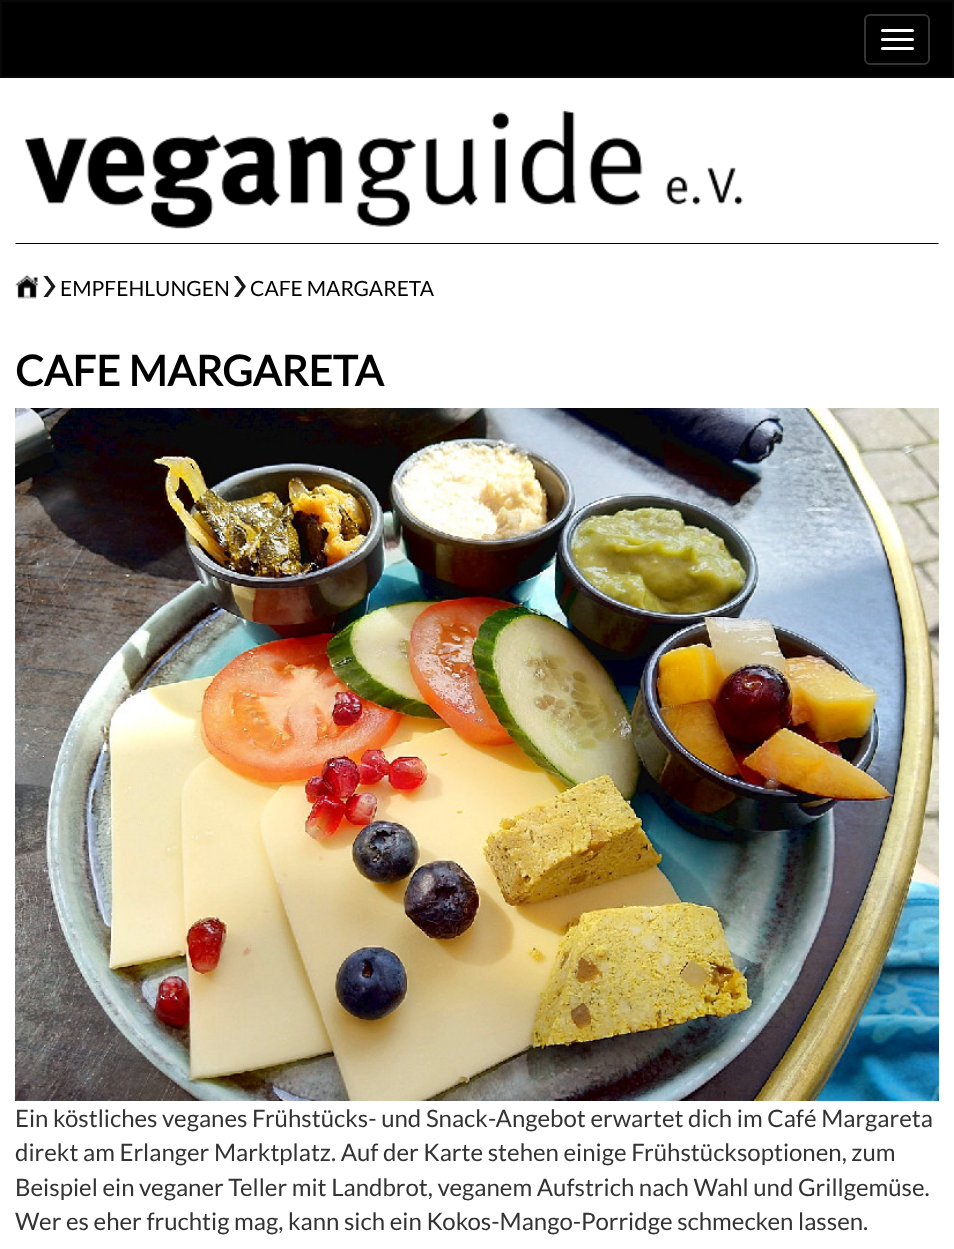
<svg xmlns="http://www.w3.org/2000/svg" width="954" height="1249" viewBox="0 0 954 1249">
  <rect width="100%" height="100%" fill="#fff"/>
  <path d="M1 1h952v76H1z" fill="#000" stroke="#080808" stroke-width="2"/>
  <rect x="865" y="15" width="64" height="49" rx="5" fill="none" stroke="#333" stroke-width="2"/>
  <rect x="881" y="29" width="33" height="3" rx="1.5" fill="#fff"/>
  <rect x="881" y="38" width="33" height="3" rx="1.5" fill="#fff"/>
  <rect x="881" y="47" width="33" height="3" rx="1.5" fill="#fff"/>
  <image x="24" y="110" width="719" height="119" href="img/1.png"/>
  <path d="M15 243H939L938 244H16Z" fill="#000"/>
  <image x="15" y="275" width="24" height="24" href="img/2.png"/>
  <image x="43" y="276" width="13" height="21" href="img/3.png"/>
  <image x="234" y="276" width="12" height="21" href="img/4.png"/>
  <image x="15" y="408" width="924" height="693" href="img/5.png"/>
  <g font-family="Lato" font-size="21" fill="#000">
    <text x="60" y="296">EMPFEHLUNGEN</text>
    <text x="250" y="296">CAFE MARGARETA</text>
  </g>
  <text x="15" y="386" font-family="Lato" font-size="42" font-weight="bold" fill="#000">CAFE MARGARETA</text>
  <g font-family="Lato" font-size="24" fill="#333">
    <text x="15" y="1127">Ein köstliches veganes Frühstücks- und Snack-Angebot erwartet dich im Café Margareta</text>
    <text x="15" y="1161">direkt am Erlanger Marktplatz. Auf der Karte stehen einige Frühstücksoptionen, zum</text>
    <text x="15" y="1196">Beispiel ein veganer Teller mit Landbrot, veganem Aufstrich nach Wahl und Grillgemüse.</text>
    <text x="15" y="1230">Wer es eher fruchtig mag, kann sich ein Kokos-Mango-Porridge schmecken lassen.</text>
  </g>
</svg>
